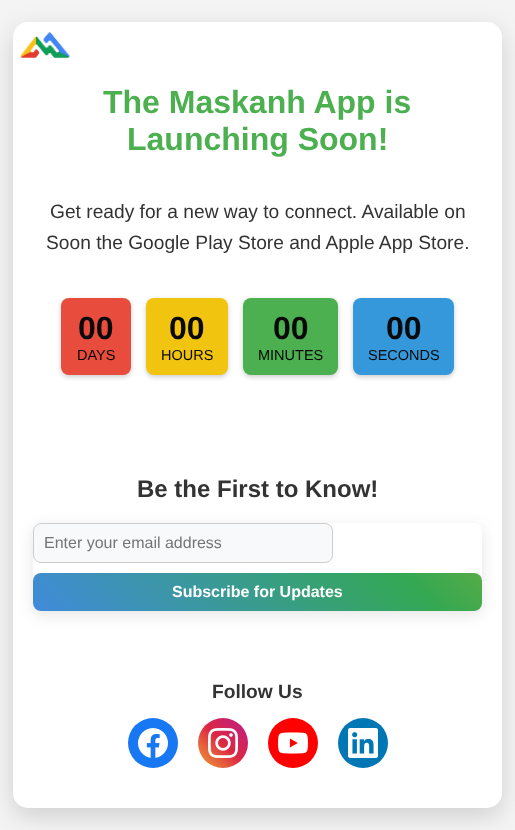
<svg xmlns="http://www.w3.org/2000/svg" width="515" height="830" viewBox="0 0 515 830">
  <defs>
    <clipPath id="clip1"><path d="M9 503H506V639H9ZM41 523H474C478.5 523 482 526.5 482 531V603C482 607.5 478.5 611 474 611H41C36.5 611 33 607.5 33 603V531C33 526.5 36.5 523 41 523Z" clip-rule="evenodd"/></clipPath>
    <linearGradient id="g1" gradientUnits="userSpaceOnUse" x1="341" y1="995" x2="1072" y2="265"><stop offset="0" stop-color="#4285f4"/><stop offset="0.33" stop-color="#34a853"/><stop offset="0.67" stop-color="#fbbc05"/><stop offset="1" stop-color="#ea4335"/></linearGradient>
    <linearGradient id="g2" gradientUnits="userSpaceOnUse" x1="198" y1="768" x2="248" y2="718"><stop offset="0" stop-color="#f09433"/><stop offset="0.25" stop-color="#e6683c"/><stop offset="0.5" stop-color="#dc2743"/><stop offset="0.75" stop-color="#cc2366"/><stop offset="1" stop-color="#bc1888"/></linearGradient>
  </defs>
  <rect width="100%" height="100%" fill="#f4f4f4"/>
  <rect x="13" y="30" width="489" height="786" rx="15" fill="#00000026" filter="blur(12.5px)"/>
  <rect x="13" y="22" width="489" height="786" rx="15" fill="#fff"/>
  <image x="20" y="32" width="50" height="26" href="img/1.png"/>
  <rect x="61" y="300" width="70" height="77" rx="8" fill="#00000033" filter="blur(2.5px)"/>
  <rect x="61" y="298" width="70" height="77" rx="8" fill="#e74c3c"/>
  <rect x="146" y="300" width="82" height="77" rx="8" fill="#00000033" filter="blur(2.5px)"/>
  <rect x="146" y="298" width="82" height="77" rx="8" fill="#f1c40f"/>
  <rect x="243" y="300" width="95" height="77" rx="8" fill="#00000033" filter="blur(2.5px)"/>
  <rect x="243" y="298" width="95" height="77" rx="8" fill="#4caf50"/>
  <rect x="353" y="300" width="101" height="77" rx="8" fill="#00000033" filter="blur(2.5px)"/>
  <rect x="353" y="298" width="101" height="77" rx="8" fill="#3498db"/>
  <g clip-path="url(#clip1)">
    <rect x="33" y="527" width="449" height="88" rx="8" fill="#0000001a" filter="blur(7.5px)"/>
  </g>
  <rect x="33.5" y="523.5" width="299" height="39" rx="7.5" fill="#f8f9fa" stroke="#ccc"/>
  <rect x="33" y="573" width="449" height="38" rx="8" fill="url(#g1)"/>
  <circle cx="153" cy="743" r="25" fill="#1877f2"/>
  <image x="138" y="728" width="30" height="30" href="img/2.png"/>
  <circle cx="223" cy="743" r="25" fill="url(#g2)"/>
  <image x="208" y="728" width="30" height="30" href="img/3.png"/>
  <circle cx="293" cy="743" r="25" fill="#f00"/>
  <image x="278" y="732" width="30" height="22" href="img/4.png"/>
  <circle cx="363" cy="743" r="25" fill="#0077b5"/>
  <image x="348" y="728" width="30" height="30" href="img/5.png"/>
  <g font-family="Liberation Sans" font-size="32" font-weight="bold" fill="#4caf50">
    <text x="103" y="113">The Maskanh App is</text>
    <text x="127" y="150">Launching Soon!</text>
  </g>
  <g font-family="Liberation Sans" font-size="19.2" fill="#333">
    <text x="50" y="218">Get ready for a new way to connect. Available on</text>
    <text x="46" y="249">Soon the Google Play Store and Apple App Store.</text>
  </g>
  <text x="78" y="339" font-family="Liberation Sans" font-size="32" font-weight="bold" fill="#090909">00</text>
  <text x="77" y="360" font-family="Liberation Sans" font-size="14.5" fill="#090909">DAYS</text>
  <text x="169" y="339" font-family="Liberation Sans" font-size="32" font-weight="bold" fill="#090909">00</text>
  <text x="161" y="360" font-family="Liberation Sans" font-size="14.5" fill="#090909">HOURS</text>
  <text x="273" y="339" font-family="Liberation Sans" font-size="32" font-weight="bold" fill="#090909">00</text>
  <text x="258" y="360" font-family="Liberation Sans" font-size="14.5" fill="#090909">MINUTES</text>
  <text x="386" y="339" font-family="Liberation Sans" font-size="32" font-weight="bold" fill="#090909">00</text>
  <text x="368" y="360" font-family="Liberation Sans" font-size="14.5" fill="#090909">SECONDS</text>
  <text x="137" y="497" font-family="Liberation Sans" font-size="24" font-weight="bold" fill="#333">Be the First to Know!</text>
  <text x="44" y="548" font-family="Liberation Sans" font-size="16" fill="#757575">Enter your email address</text>
  <text x="172" y="597" font-family="Liberation Sans" font-size="16" font-weight="bold" fill="#fff">Subscribe for Updates</text>
  <text x="212" y="698" font-family="Liberation Sans" font-size="19.2" font-weight="bold" fill="#333">Follow Us</text>
</svg>
